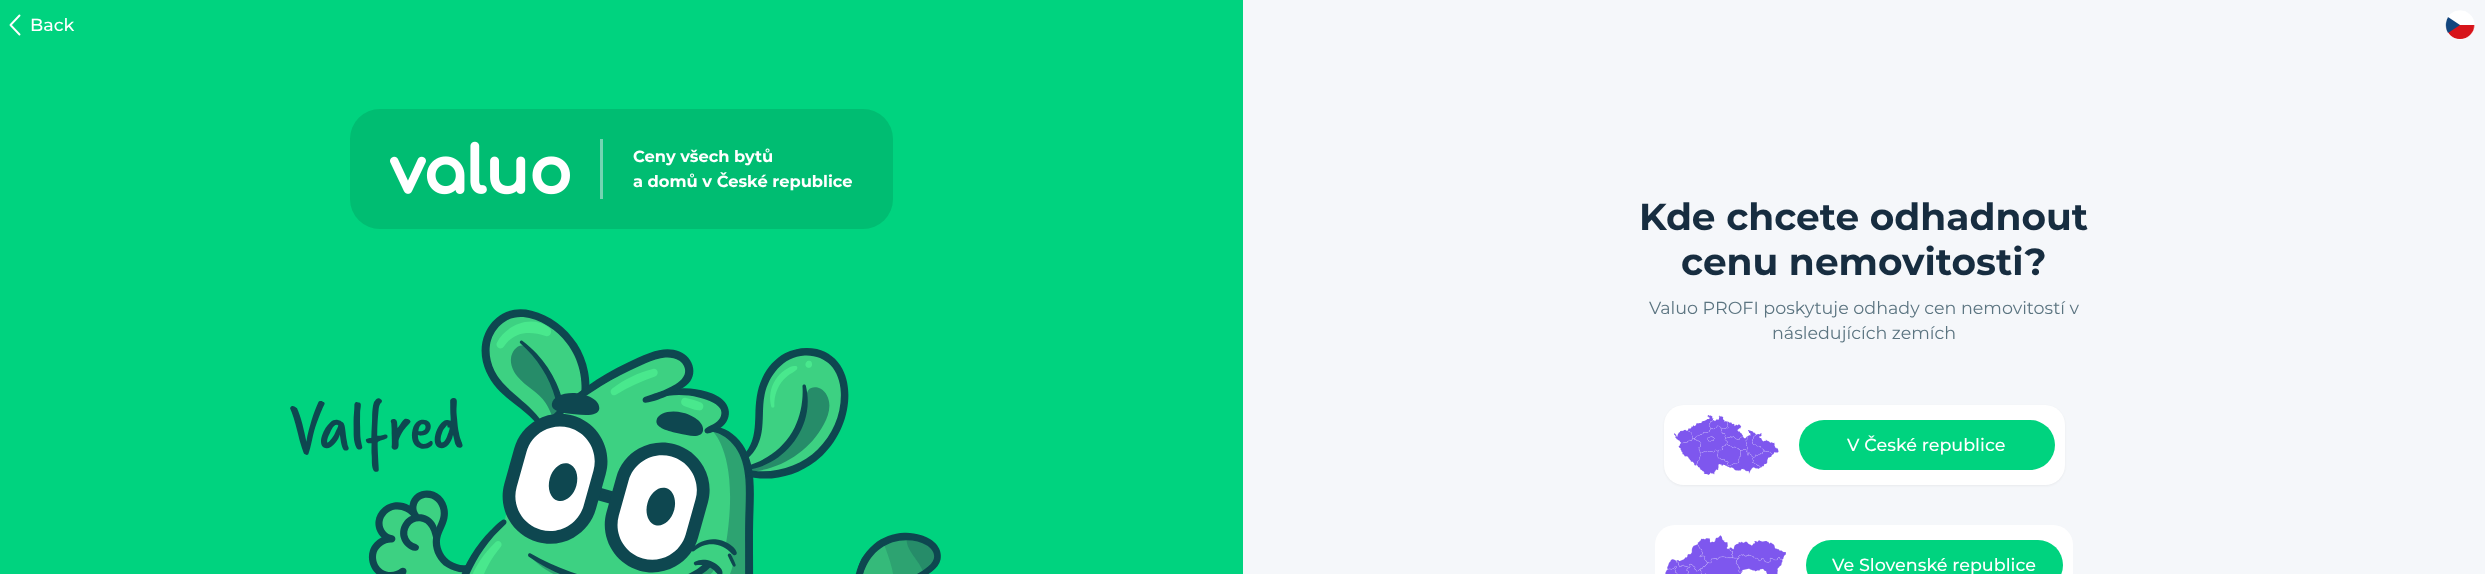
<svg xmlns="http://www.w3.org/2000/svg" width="2485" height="574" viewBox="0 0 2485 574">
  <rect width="100%" height="100%" fill="#f5f7fa"/>
  <path d="M0 0h1243v574H0z" fill="#00d37f"/>
  <path d="M19.5 34.5L10.5 25L19.5 15.5" fill="none" stroke="#fff" stroke-width="1.9" stroke-linecap="round" stroke-linejoin="round"/>
  <circle cx="2460" cy="25" r="14.5" fill="#fff"/>
  <path d="M2457.5 39C2450.5 37.5 2446 32 2446 25H2474.5C2474.5 32 2469.5 37.5 2462.5 39Z" fill="#d7141a"/>
  <path d="M2460 25L2448 33C2445 28.5 2445 22 2448 17Z" fill="#11457e"/>
  <circle cx="2460" cy="25" r="14.5" fill="none" stroke="#fff" stroke-width="0.3"/>
  <rect x="350" y="109" width="543" height="120" rx="30" fill="#00bd72"/>
  <image x="390" y="141" width="180" height="54" href="img/1.png"/>
  <path d="M600 139h3v60H600z" fill="#73d4b2"/>
  <image x="290" y="309" width="651" height="265" href="img/2.png"/>
  <rect x="1664" y="406" width="401" height="80" rx="20" fill="#0000000d" filter="blur(1px)"/>
  <rect x="1664" y="405" width="401" height="80" rx="20" fill="#fff"/>
  <image x="1674" y="415" width="105" height="60" href="img/3.png"/>
  <rect x="1799" y="420" width="256" height="50" rx="25" fill="#00d37f"/>
  <rect x="1655" y="525" width="418" height="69" rx="20" fill="#fff"/>
  <image x="1665" y="535" width="121" height="39" href="img/4.png"/>
  <rect x="1806" y="540" width="257" height="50" rx="25" fill="#00d37f"/>
  <text x="30" y="31" font-family="Montserrat" font-size="17.5" font-weight="500" fill="#fff">Back</text>
  <g font-family="Montserrat" font-size="16.25" font-weight="bold" fill="#fff">
    <text x="633" y="162">Ceny všech bytů</text>
    <text x="633" y="187">a domů v České republice</text>
  </g>
  <g font-family="Montserrat" font-size="37.5" font-weight="bold" fill="#172d40">
    <text x="1639" y="230">Kde chcete odhadnout</text>
    <text x="1681" y="275">cenu nemovitosti?</text>
  </g>
  <g font-family="Montserrat" font-size="17.5" fill="#5b7480">
    <text x="1649" y="314">Valuo PROFI poskytuje odhady cen nemovitostí v</text>
    <text x="1772" y="339">následujících zemích</text>
  </g>
  <g font-family="Montserrat" font-size="17.5" font-weight="500" fill="#fff">
    <text x="1847" y="451">V České republice</text>
    <text x="1832" y="571">Ve Slovenské republice</text>
  </g>
</svg>
